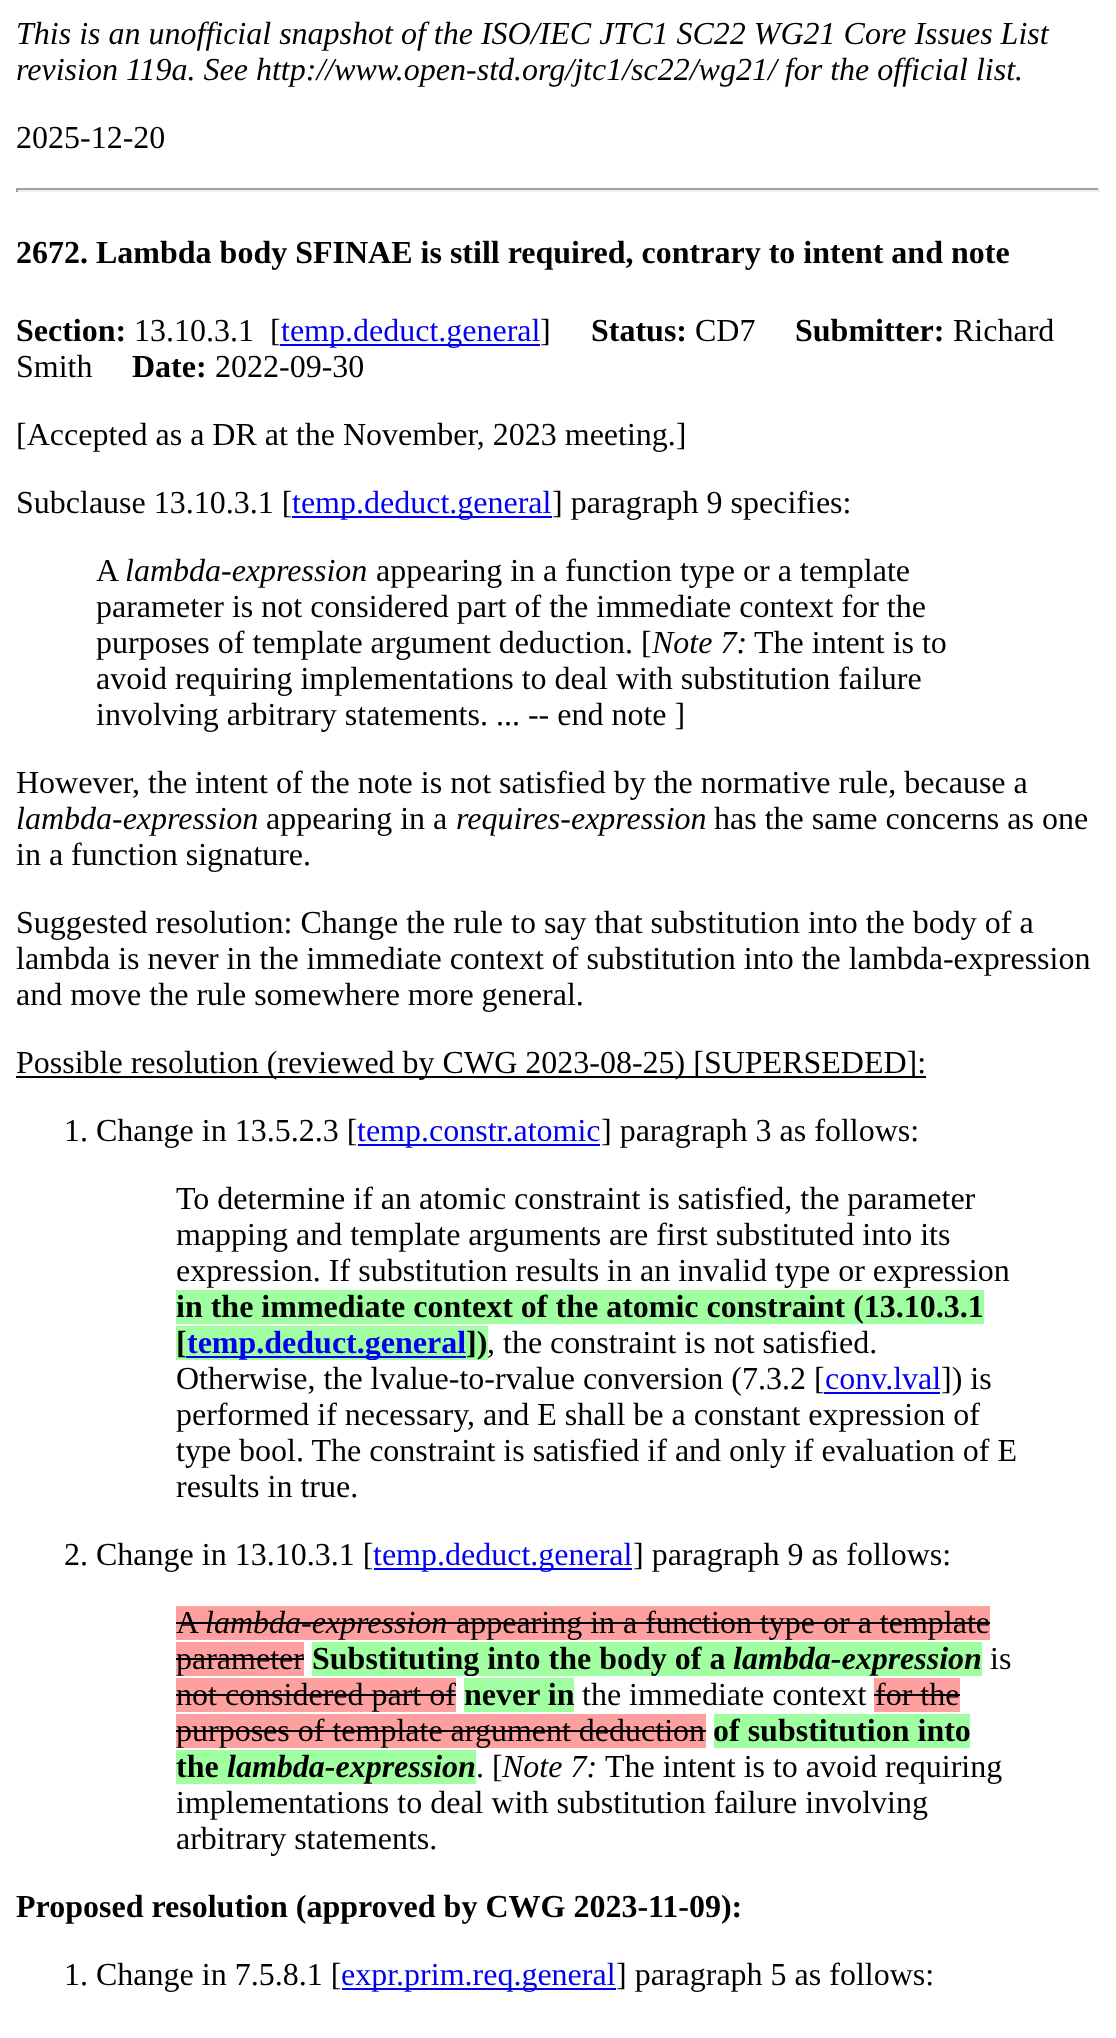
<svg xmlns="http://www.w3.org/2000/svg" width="1116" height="2038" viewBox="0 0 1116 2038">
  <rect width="100%" height="100%" fill="#fff"/>
  <path d="M16 188h1084v2H16z" fill="#9f9f9f"/>
  <path d="M1098 188h2v4H1098z" fill="#eee"/>
  <path d="M16 190h1084v2H16z" fill="#eee"/>
  <path d="M16 188h2v4H16z" fill="#9f9f9f"/>
  <path d="M280 344h260v2H280z" fill="#00e"/>
  <path d="M292 516h260v2H292z" fill="#00e"/>
  <path d="M16 1076h910v2H16z" fill="#000"/>
  <path d="M358 1144h242v2H358z" fill="#00e"/>
  <path d="M176 1290h808v34H176z" fill="#a0ffa0"/>
  <path d="M176 1326h312v34H176z" fill="#a0ffa0"/>
  <path d="M186 1356h280v2H186z" fill="#00e"/>
  <path d="M824 1392h116v2H824z" fill="#00e"/>
  <path d="M374 1568h258v2H374z" fill="#00e"/>
  <path d="M176 1606h814v34H176z" fill="#ffa0a0"/>
  <path d="M176 1622h30v2H176z" fill="#000"/>
  <path d="M206 1622h242v2H206z" fill="#000"/>
  <path d="M448 1622h542v2H448z" fill="#000"/>
  <path d="M176 1642h128v34H176z" fill="#ffa0a0"/>
  <path d="M176 1658h128v2H176z" fill="#000"/>
  <path d="M312 1642h670v34H312z" fill="#a0ffa0"/>
  <path d="M176 1678h280v34H176z" fill="#ffa0a0"/>
  <path d="M176 1694h280v2H176z" fill="#000"/>
  <path d="M464 1678h110v34H464z" fill="#a0ffa0"/>
  <path d="M874 1678h86v34H874z" fill="#ffa0a0"/>
  <path d="M874 1694h86v2H874z" fill="#000"/>
  <path d="M176 1714h530v34H176z" fill="#ffa0a0"/>
  <path d="M176 1730h530v2H176z" fill="#000"/>
  <path d="M714 1714h256v34H714z" fill="#a0ffa0"/>
  <path d="M176 1750h300v34H176z" fill="#a0ffa0"/>
  <path d="M342 1988h274v2H342z" fill="#00e"/>
  <g font-family="Liberation Serif" font-size="32" font-style="italic" fill="#000">
    <text x="16" y="44">This is an unofficial snapshot of the ISO/IEC JTC1 SC22 WG21 Core Issues List</text>
    <text x="16" y="80">revision 119a. See http://www.open-std.org/jtc1/sc22/wg21/ for the official list.</text>
  </g>
  <text x="16" y="148" font-family="Liberation Serif" font-size="32" fill="#000">2025-12-20</text>
  <g font-family="Liberation Serif" font-size="32" font-weight="bold" fill="#000">
    <text x="16" y="263">2672. Lambda body SFINAE is still required, contrary to intent and note</text>
    <text x="16" y="341">Section:</text>
  </g>
  <text x="134" y="341" font-family="Liberation Serif" font-size="32" fill="#000" xml:space="preserve">13.10.3.1  [</text>
  <text x="281" y="341" font-family="Liberation Serif" font-size="32" fill="#00e">temp.deduct.general</text>
  <text x="540" y="341" font-family="Liberation Serif" font-size="32" fill="#000">]</text>
  <text x="591" y="341" font-family="Liberation Serif" font-size="32" font-weight="bold" fill="#000">Status:</text>
  <text x="695" y="341" font-family="Liberation Serif" font-size="32" fill="#000">CD7</text>
  <text x="795" y="341" font-family="Liberation Serif" font-size="32" font-weight="bold" fill="#000">Submitter:</text>
  <g font-family="Liberation Serif" font-size="32" fill="#000">
    <text x="953" y="341">Richard</text>
    <text x="16" y="377">Smith</text>
  </g>
  <text x="132" y="377" font-family="Liberation Serif" font-size="32" font-weight="bold" fill="#000">Date:</text>
  <g font-family="Liberation Serif" font-size="32" fill="#000">
    <text x="215" y="377">2022-09-30</text>
    <text x="16" y="445">[Accepted as a DR at the November, 2023 meeting.]</text>
    <text x="16" y="513">Subclause 13.10.3.1 [</text>
  </g>
  <text x="292" y="513" font-family="Liberation Serif" font-size="32" fill="#00e">temp.deduct.general</text>
  <g font-family="Liberation Serif" font-size="32" fill="#000">
    <text x="552" y="513">] paragraph 9 specifies:</text>
    <text x="96" y="581">A</text>
  </g>
  <text x="125" y="581" font-family="Liberation Serif" font-size="32" font-style="italic" fill="#000">lambda-expression</text>
  <g font-family="Liberation Serif" font-size="32" fill="#000">
    <text x="376" y="581">appearing in a function type or a template</text>
    <text x="96" y="617">parameter is not considered part of the immediate context for the</text>
    <text x="96" y="653">purposes of template argument deduction. [</text>
  </g>
  <text x="652" y="653" font-family="Liberation Serif" font-size="32" font-style="italic" fill="#000">Note 7:</text>
  <g font-family="Liberation Serif" font-size="32" fill="#000">
    <text x="754" y="653">The intent is to</text>
    <text x="96" y="689">avoid requiring implementations to deal with substitution failure</text>
    <text x="96" y="725">involving arbitrary statements. ... -- end note ]</text>
    <text x="16" y="793">However, the intent of the note is not satisfied by the normative rule, because a</text>
  </g>
  <text x="16" y="829" font-family="Liberation Serif" font-size="32" font-style="italic" fill="#000">lambda-expression</text>
  <text x="266" y="829" font-family="Liberation Serif" font-size="32" fill="#000">appearing in a</text>
  <text x="456" y="829" font-family="Liberation Serif" font-size="32" font-style="italic" fill="#000">requires-expression</text>
  <g font-family="Liberation Serif" font-size="32" fill="#000">
    <text x="714" y="829">has the same concerns as one</text>
    <text x="16" y="865">in a function signature.</text>
    <text x="16" y="933">Suggested resolution: Change the rule to say that substitution into the body of a</text>
    <text x="16" y="969">lambda is never in the immediate context of substitution into the lambda-expression</text>
    <text x="16" y="1005">and move the rule somewhere more general.</text>
    <text x="16" y="1073">Possible resolution (reviewed by CWG 2023-08-25) [SUPERSEDED]:</text>
    <text x="64" y="1141">1. Change in 13.5.2.3 [</text>
  </g>
  <text x="357" y="1141" font-family="Liberation Serif" font-size="32" fill="#00e">temp.constr.atomic</text>
  <g font-family="Liberation Serif" font-size="32" fill="#000">
    <text x="601" y="1141">] paragraph 3 as follows:</text>
    <text x="176" y="1209">To determine if an atomic constraint is satisfied, the parameter</text>
    <text x="176" y="1245">mapping and template arguments are first substituted into its</text>
    <text x="176" y="1281">expression. If substitution results in an invalid type or expression</text>
  </g>
  <g font-family="Liberation Serif" font-size="32" font-weight="bold" fill="#000">
    <text x="176" y="1317">in the immediate context of the atomic constraint (13.10.3.1</text>
    <text x="176" y="1353">[</text>
  </g>
  <text x="187" y="1353" font-family="Liberation Serif" font-size="32" font-weight="bold" fill="#00e">temp.deduct.general</text>
  <text x="466" y="1353" font-family="Liberation Serif" font-size="32" font-weight="bold" fill="#000">])</text>
  <g font-family="Liberation Serif" font-size="32" fill="#000">
    <text x="487" y="1353">, the constraint is not satisfied.</text>
    <text x="176" y="1389">Otherwise, the lvalue-to-rvalue conversion (7.3.2 [</text>
  </g>
  <text x="825" y="1389" font-family="Liberation Serif" font-size="32" fill="#00e">conv.lval</text>
  <g font-family="Liberation Serif" font-size="32" fill="#000">
    <text x="941" y="1389">]) is</text>
    <text x="176" y="1425">performed if necessary, and E shall be a constant expression of</text>
    <text x="176" y="1461">type bool. The constraint is satisfied if and only if evaluation of E</text>
    <text x="176" y="1497">results in true.</text>
    <text x="64" y="1565">2. Change in 13.10.3.1 [</text>
  </g>
  <text x="373" y="1565" font-family="Liberation Serif" font-size="32" fill="#00e">temp.deduct.general</text>
  <g font-family="Liberation Serif" font-size="32" fill="#000">
    <text x="633" y="1565">] paragraph 9 as follows:</text>
    <text x="176" y="1633">A</text>
  </g>
  <text x="205" y="1633" font-family="Liberation Serif" font-size="32" font-style="italic" fill="#000">lambda-expression</text>
  <g font-family="Liberation Serif" font-size="32" fill="#000">
    <text x="456" y="1633">appearing in a function type or a template</text>
    <text x="176" y="1669">parameter</text>
  </g>
  <text x="312" y="1669" font-family="Liberation Serif" font-size="32" font-weight="bold" fill="#000">Substituting into the body of a</text>
  <text x="733" y="1669" font-family="Liberation Serif" font-size="32" font-weight="bold" font-style="italic" fill="#000">lambda-expression</text>
  <g font-family="Liberation Serif" font-size="32" fill="#000">
    <text x="990" y="1669">is</text>
    <text x="176" y="1705">not considered part of</text>
  </g>
  <text x="464" y="1705" font-family="Liberation Serif" font-size="32" font-weight="bold" fill="#000">never in</text>
  <g font-family="Liberation Serif" font-size="32" fill="#000">
    <text x="582" y="1705">the immediate context</text>
    <text x="875" y="1705">for the</text>
    <text x="176" y="1741">purposes of template argument deduction</text>
  </g>
  <g font-family="Liberation Serif" font-size="32" font-weight="bold" fill="#000">
    <text x="713" y="1741">of substitution into</text>
    <text x="176" y="1777">the</text>
  </g>
  <text x="227" y="1777" font-family="Liberation Serif" font-size="32" font-weight="bold" font-style="italic" fill="#000">lambda-expression</text>
  <text x="476" y="1777" font-family="Liberation Serif" font-size="32" fill="#000">. [</text>
  <text x="502" y="1777" font-family="Liberation Serif" font-size="32" font-style="italic" fill="#000">Note 7:</text>
  <g font-family="Liberation Serif" font-size="32" fill="#000">
    <text x="605" y="1777">The intent is to avoid requiring</text>
    <text x="176" y="1813">implementations to deal with substitution failure involving</text>
    <text x="176" y="1849">arbitrary statements.</text>
  </g>
  <text x="16" y="1917" font-family="Liberation Serif" font-size="32" font-weight="bold" fill="#000">Proposed resolution (approved by CWG 2023-11-09):</text>
  <text x="64" y="1985" font-family="Liberation Serif" font-size="32" fill="#000">1. Change in 7.5.8.1 [</text>
  <text x="341" y="1985" font-family="Liberation Serif" font-size="32" fill="#00e">expr.prim.req.general</text>
  <text x="616" y="1985" font-family="Liberation Serif" font-size="32" fill="#000">] paragraph 5 as follows:</text>
</svg>
